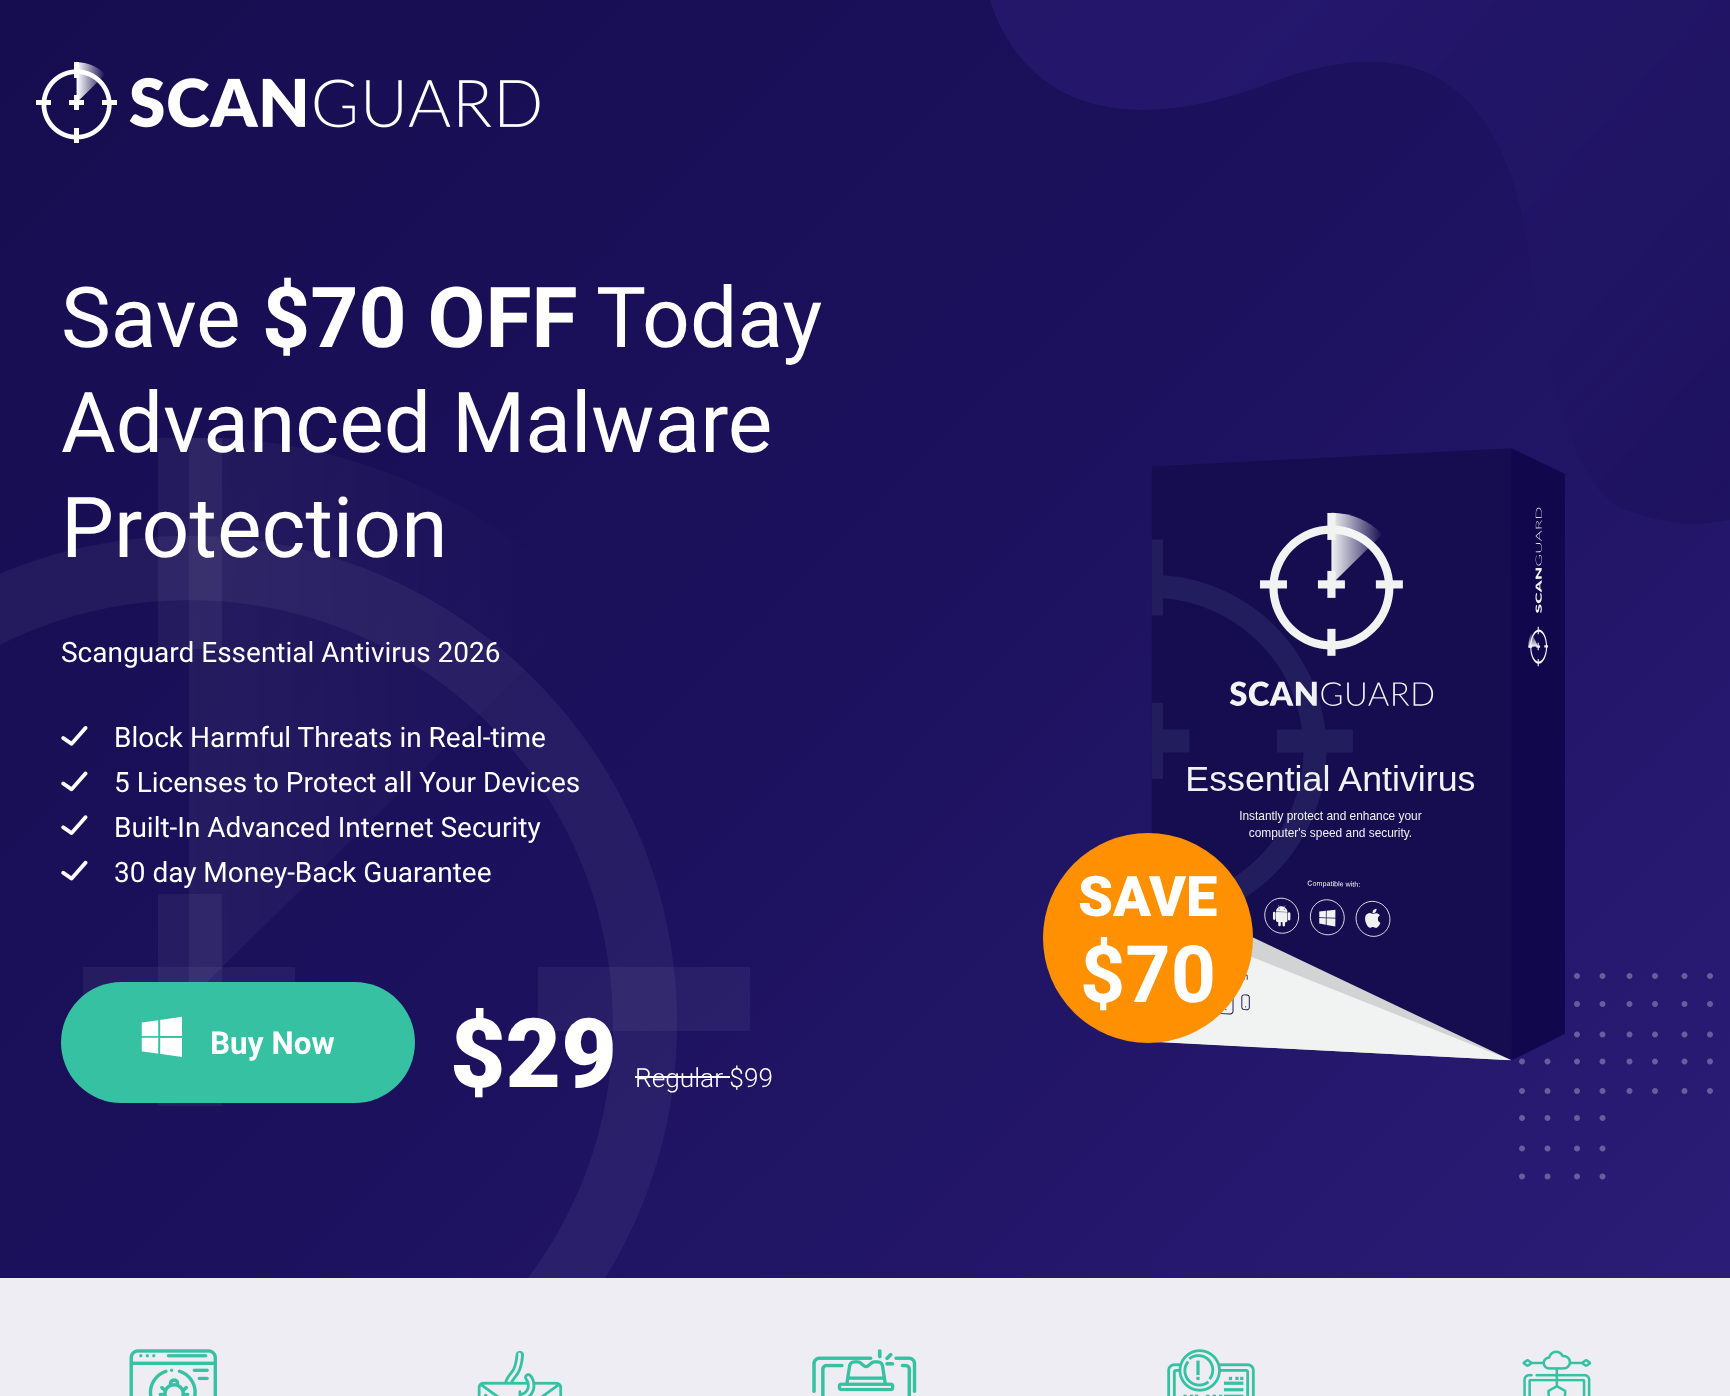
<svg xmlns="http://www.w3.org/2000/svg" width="1730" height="1396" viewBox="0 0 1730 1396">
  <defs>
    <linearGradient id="g1" gradientUnits="userSpaceOnUse" x1="113" y1="-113" x2="1617" y2="1391"><stop offset="0" stop-color="#160d50"/><stop offset="0.5" stop-color="#1c115d"/><stop offset="1" stop-color="#2b1c77"/></linearGradient>
  </defs>
  <rect width="100%" height="100%" fill="#eeedf4"/>
  <path d="M0 0h1730v1278H0z" fill="url(#g1)"/>
  <image x="36" y="62" width="504" height="81" href="img/1.png"/>
  <image x="0" y="438" width="750" height="840" href="img/9.png"/>
  <image x="61" y="726" width="27" height="20" href="img/2.png"/>
  <image x="61" y="771" width="27" height="21" href="img/3.png"/>
  <image x="61" y="815" width="27" height="20" href="img/4.png"/>
  <image x="61" y="860" width="27" height="21" href="img/5.png"/>
  <rect x="61" y="982" width="354" height="121" rx="60.5" fill="#36c1a3"/>
  <image x="141" y="1016" width="41" height="41" href="img/6.png"/>
  <path d="M635 1076h95v2H635z" fill="#fff"/>
  <image x="990" y="0" width="740" height="524" href="img/8.png"/>
  <image x="1519" y="973" width="194" height="207" href="img/10.png"/>
  <image x="1151" y="448" width="414" height="613" href="img/7.png"/>
  <circle cx="1148" cy="938" r="105" fill="#ff9001"/>
  <image x="129" y="1349" width="88" height="47" href="img/11.png"/>
  <image x="477" y="1350" width="86" height="46" href="img/12.png"/>
  <image x="812" y="1349" width="105" height="47" href="img/13.png"/>
  <image x="1167" y="1349" width="88" height="47" href="img/14.png"/>
  <image x="1522" y="1350" width="70" height="46" href="img/15.png"/>
  <text x="61" y="347" font-family="Roboto" font-size="84" fill="#fff">Save</text>
  <text x="262" y="347" font-family="Roboto" font-size="84" font-weight="bold" fill="#fff">$70 OFF</text>
  <g font-family="Roboto" font-size="84" fill="#fff">
    <text x="596" y="347">Today</text>
    <text x="61" y="452">Advanced Malware</text>
    <text x="61" y="557">Protection</text>
  </g>
  <g font-family="Roboto" font-size="28" fill="#fff">
    <text x="61" y="662">Scanguard Essential Antivirus 2026</text>
    <text x="114" y="747">Block Harmful Threats in Real-time</text>
    <text x="114" y="792">5 Licenses to Protect all Your Devices</text>
    <text x="114" y="837">Built-In Advanced Internet Security</text>
    <text x="114" y="882">30 day Money-Back Guarantee</text>
  </g>
  <text x="210" y="1054" font-family="Roboto" font-size="31.5" font-weight="bold" fill="#fff">Buy Now</text>
  <text x="450" y="1087" font-family="Roboto" font-size="96" font-weight="900" fill="#fff">$29</text>
  <text x="635" y="1087" font-family="Roboto" font-size="26.25" font-weight="300" fill="#fff">Regular $99</text>
  <text x="1078" y="916" font-family="Roboto" font-size="56" font-weight="900" fill="#fff">SAVE</text>
  <text x="1080" y="1002" font-family="Roboto" font-size="79" font-weight="bold" fill="#fff">$70</text>
</svg>
